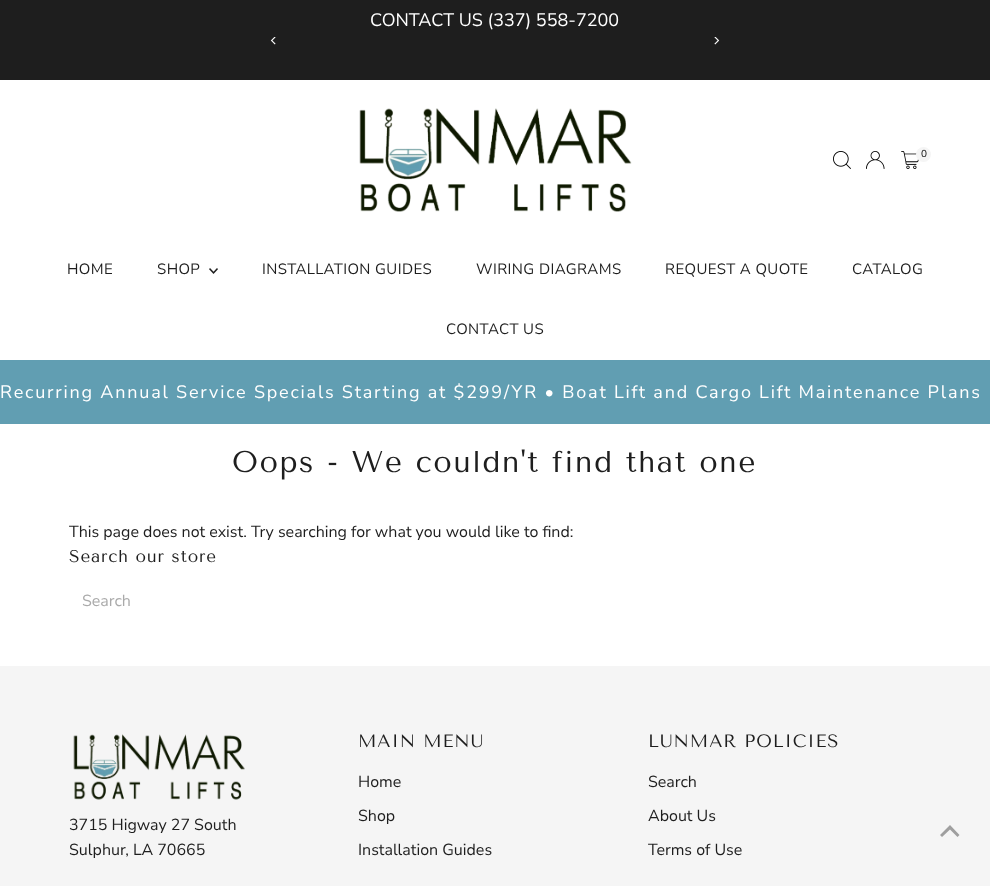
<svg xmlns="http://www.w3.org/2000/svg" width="990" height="886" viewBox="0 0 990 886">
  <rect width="100%" height="100%" fill="#fff"/>
  <path d="M0 0h990v80H0z" fill="#1e1e1e"/>
  <image x="270" y="37" width="6" height="8" href="img/1.png"/>
  <image x="714" y="37" width="6" height="8" href="img/2.png"/>
  <image x="359" y="108" width="273" height="104" href="img/3.png"/>
  <image x="833" y="151" width="18" height="18" href="img/4.png"/>
  <image x="866" y="151" width="19" height="18" href="img/5.png"/>
  <image x="901" y="151" width="18" height="18" href="img/6.png"/>
  <circle cx="923.5" cy="154.5" r="7.5" fill="#f5f5f5"/>
  <image x="209" y="268" width="9" height="6" href="img/7.png"/>
  <path d="M0 360h990v64H0z" fill="#619eb2"/>
  <path d="M0 666h990v220H0z" fill="#f5f5f5"/>
  <image x="73" y="734" width="172" height="66" href="img/8.png"/>
  <path d="M950 825L940 835L942 837L950 829.5L957.5 837L959.5 835Z" fill="#9f9f9f"/>
  <text x="370" y="26" font-family="Nunito Sans" font-size="18" fill="#fff">CONTACT US (337) 558-7200</text>
  <text x="921" y="157" font-family="Nunito Sans" font-size="10" fill="#000">0</text>
  <g font-family="Nunito Sans" font-size="15" letter-spacing="0.4" fill="#1e1e1e">
    <text x="67" y="274">HOME</text>
    <text x="157" y="274">SHOP</text>
    <text x="262" y="274">INSTALLATION GUIDES</text>
    <text x="476" y="274">WIRING DIAGRAMS</text>
    <text x="665" y="274">REQUEST A QUOTE</text>
    <text x="852" y="274">CATALOG</text>
    <text x="446" y="334">CONTACT US</text>
  </g>
  <text x="0" y="398" font-family="Nunito Sans" font-size="18" letter-spacing="1.8" fill="#fff">Recurring Annual Service Specials Starting at $299/YR • Boat Lift and Cargo Lift Maintenance Plans</text>
  <text x="232" y="472" font-family="Tenor Sans" font-size="30" letter-spacing="1.5" fill="#1e1e1e">Oops - We couldn't find that one</text>
  <text x="69" y="537" font-family="Nunito Sans" font-size="16" fill="#1e1e1e">This page does not exist. Try searching for what you would like to find:</text>
  <text x="69" y="562" font-family="Tenor Sans" font-size="17" letter-spacing="0.8" fill="#1e1e1e">Search our store</text>
  <text x="82" y="606" font-family="Nunito Sans" font-size="16" fill="#aaa">Search</text>
  <g font-family="Nunito Sans" font-size="16" fill="#1e1e1e">
    <text x="69" y="830">3715 Higway 27 South</text>
    <text x="69" y="855">Sulphur, LA 70665</text>
  </g>
  <text x="358" y="747" font-family="Tenor Sans" font-size="18" letter-spacing="0.9" fill="#1e1e1e">MAIN MENU</text>
  <g font-family="Nunito Sans" font-size="16" fill="#1e1e1e">
    <text x="358" y="787">Home</text>
    <text x="358" y="821">Shop</text>
    <text x="358" y="855">Installation Guides</text>
  </g>
  <text x="648" y="747" font-family="Tenor Sans" font-size="18" letter-spacing="0.9" fill="#1e1e1e">LUNMAR POLICIES</text>
  <g font-family="Nunito Sans" font-size="16" fill="#1e1e1e">
    <text x="648" y="787">Search</text>
    <text x="648" y="821">About Us</text>
    <text x="648" y="855">Terms of Use</text>
  </g>
</svg>
